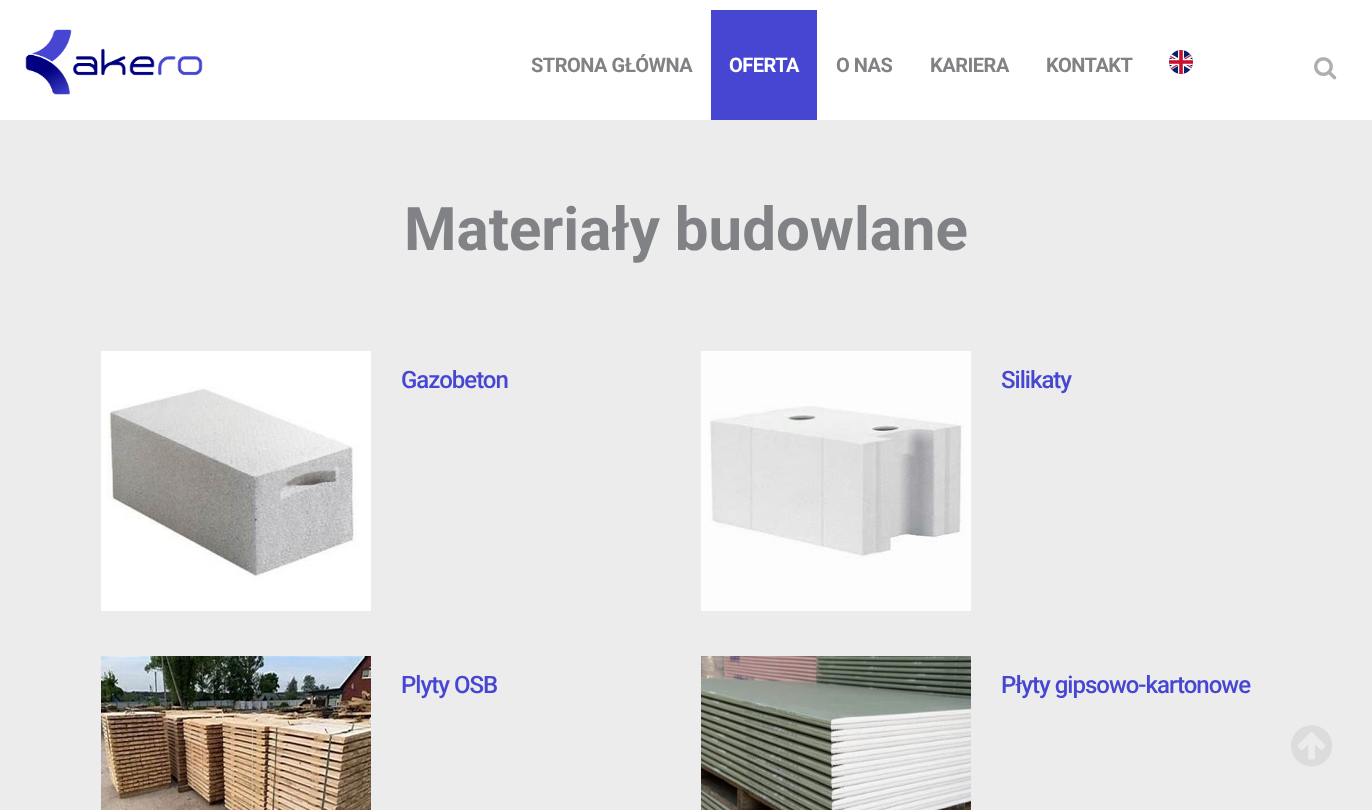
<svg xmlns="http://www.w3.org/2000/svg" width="1372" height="810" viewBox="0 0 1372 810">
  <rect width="100%" height="100%" fill="#fff"/>
  <image x="25" y="29" width="178" height="66" href="img/1.png"/>
  <path d="M711 10h106v110H711z" fill="#4646d2"/>
  <image x="1169" y="50" width="24" height="24" href="img/2.png"/>
  <image x="1314" y="57" width="23" height="23" href="img/3.png"/>
  <path d="M0 120h1372v690H0z" fill="#ececec"/>
  <image x="101" y="351" width="270" height="260" href="img/4.png"/>
  <image x="701" y="351" width="270" height="260" href="img/5.png"/>
  <image x="101" y="656" width="270" height="154" href="img/6.png"/>
  <image x="701" y="656" width="270" height="154" href="img/7.png"/>
  <image x="1291" y="725" width="41" height="42" href="img/8.png"/>
  <text x="531" y="72" font-family="Roboto" font-size="20" font-weight="bold" letter-spacing="-0.5" fill="#818285">STRONA GŁÓWNA</text>
  <text x="729" y="72" font-family="Roboto" font-size="20" font-weight="bold" letter-spacing="-0.5" fill="#fff">OFERTA</text>
  <g font-family="Roboto" font-size="20" font-weight="bold" letter-spacing="-0.5" fill="#818285">
    <text x="836" y="72">O NAS</text>
    <text x="930" y="72">KARIERA</text>
    <text x="1046" y="72">KONTAKT</text>
  </g>
  <text x="404" y="250" font-family="Roboto" font-size="60" font-weight="bold" fill="#818285">Materiały budowlane</text>
  <g font-family="Roboto" font-size="24" font-weight="500" letter-spacing="-1" fill="#4646d2">
    <text x="401" y="388">Gazobeton</text>
    <text x="1001" y="388">Silikaty</text>
    <text x="401" y="693">Plyty OSB</text>
    <text x="1001" y="693">Płyty gipsowo-kartonowe</text>
  </g>
</svg>
